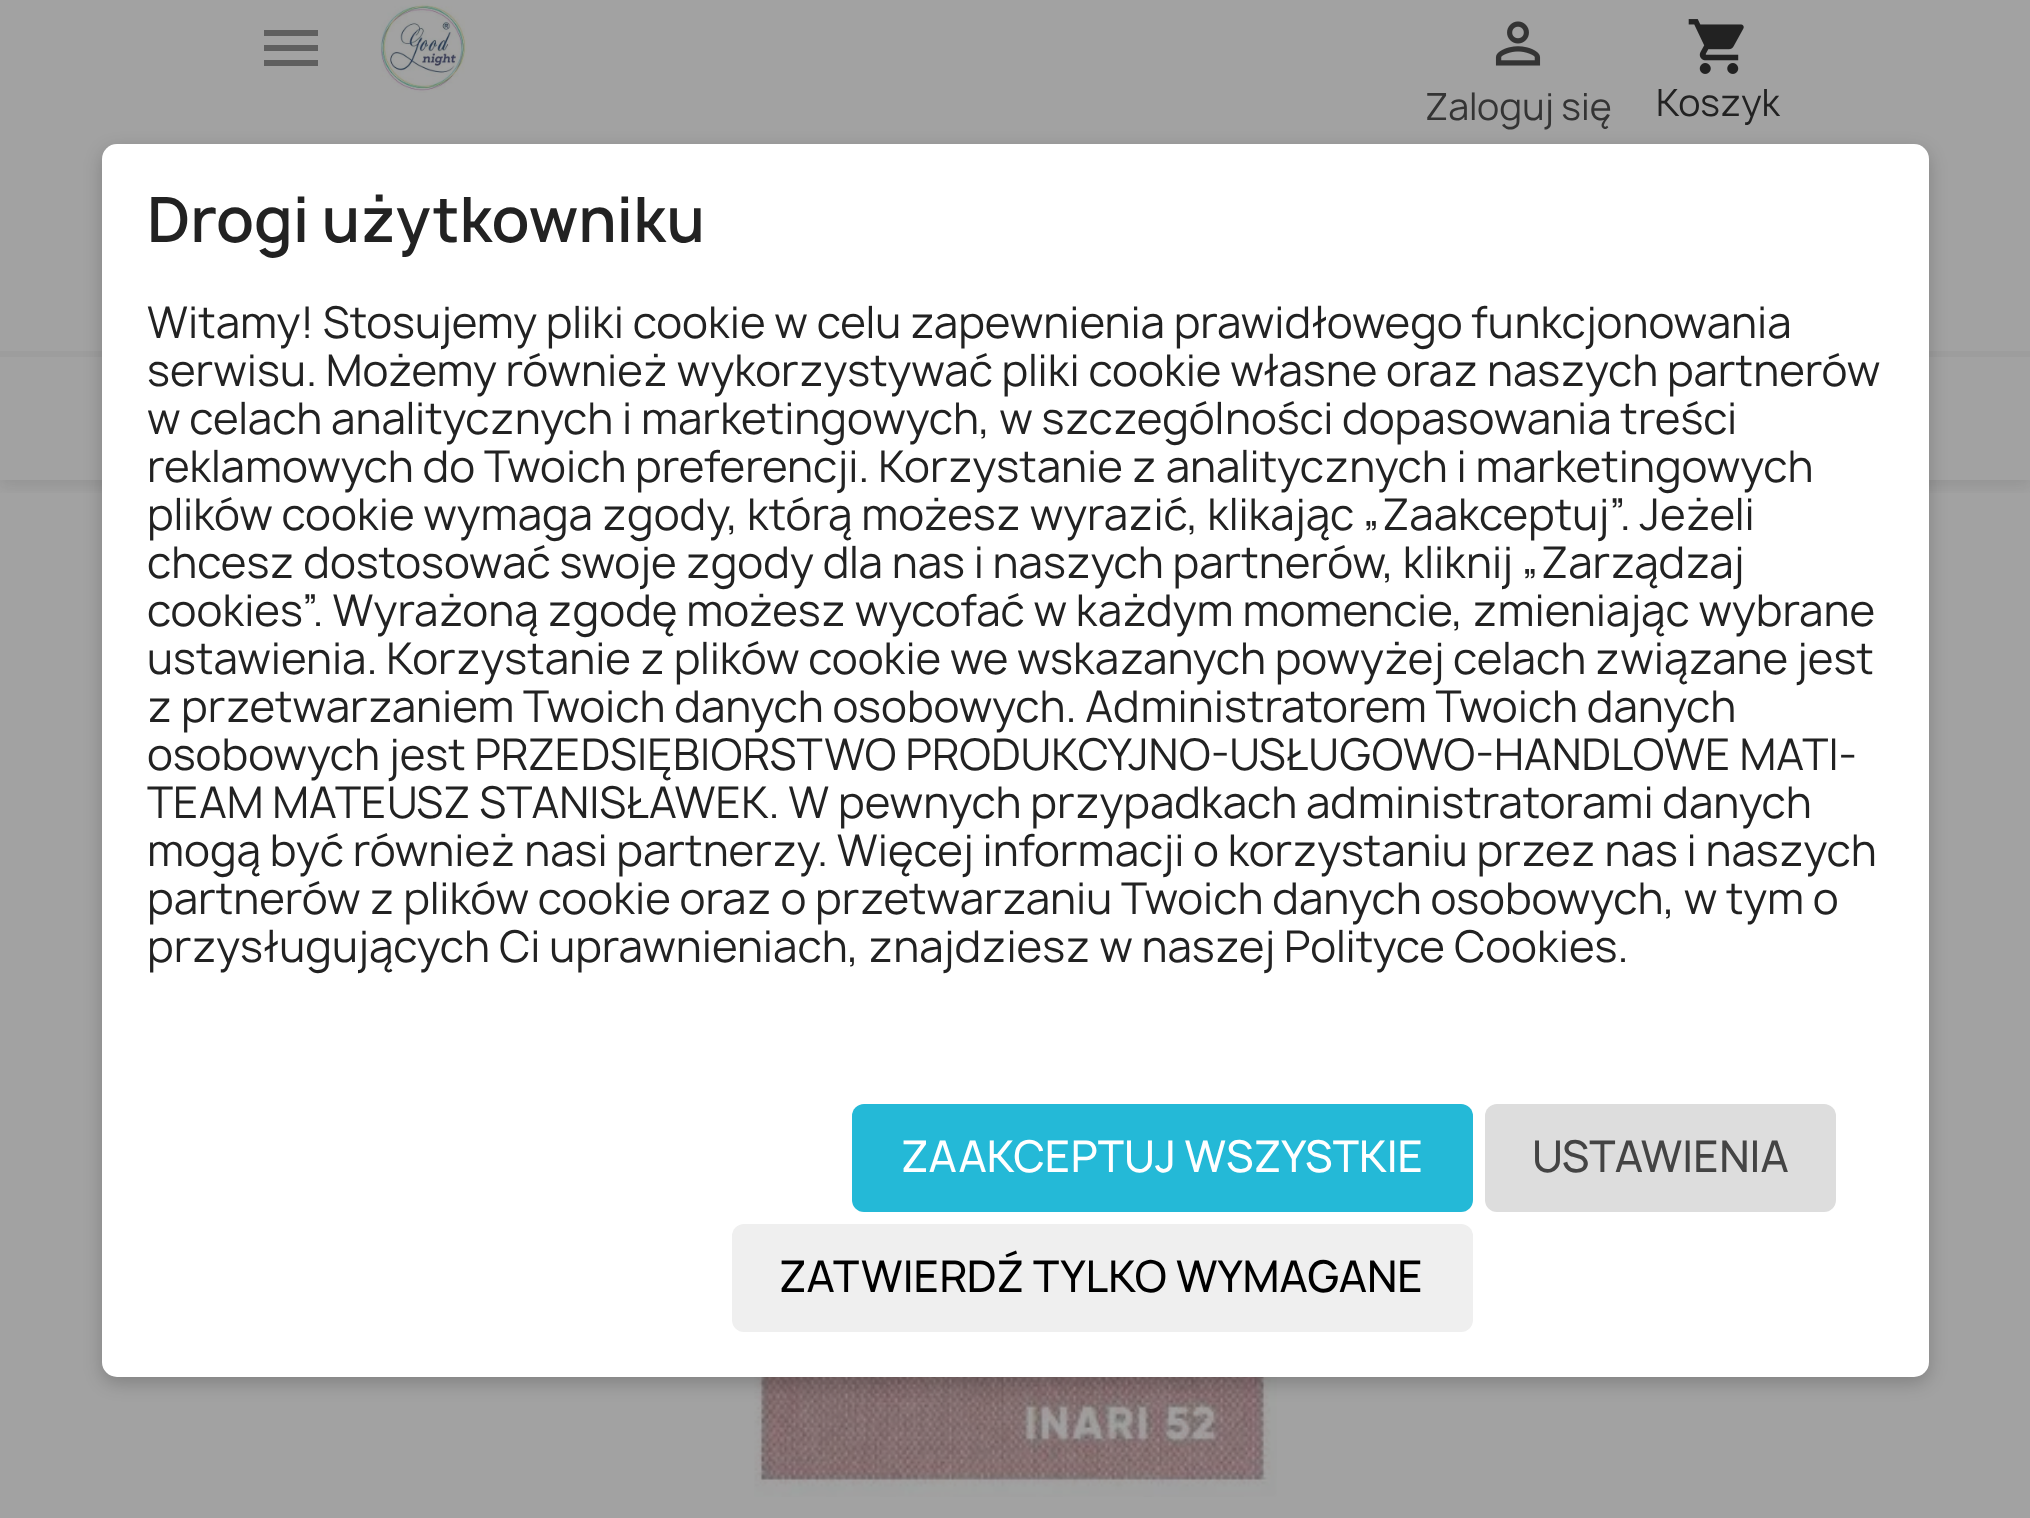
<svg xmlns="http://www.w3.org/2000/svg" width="2030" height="1518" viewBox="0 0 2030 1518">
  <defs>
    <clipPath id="clip1"><path d="M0 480h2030v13H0z"/></clipPath>
  </defs>
  <rect width="100%" height="100%" fill="#a2a2a2"/>
  <g clip-path="url(#clip1)">
    <path d="M0 -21h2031v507H0z" fill="#2222221c" filter="blur(7.5px)"/>
  </g>
  <path d="M0 351h2030v6H0z" fill="#9d9d9d"/>
  <path d="M264 30H318V36H264ZM264 51V45H318V51ZM264 66V60H318V66Z" fill="#5f5f5f"/>
  <image x="380" y="3" width="87" height="90" href="img/1.png"/>
  <image x="1495" y="21" width="46" height="45" href="img/2.png"/>
  <image x="1688" y="19" width="56" height="55" href="img/3.png"/>
  <image x="754" y="1377" width="523" height="120" href="img/4.png"/>
  <rect x="102" y="150" width="1827" height="1233" rx="15" fill="#00000033" filter="blur(9px)"/>
  <rect x="102" y="144" width="1827" height="1233" rx="15" fill="#fff"/>
  <rect x="852" y="1104" width="621" height="108" rx="12" fill="#24b9d7"/>
  <rect x="1485" y="1104" width="351" height="108" rx="12" fill="#ddd"/>
  <rect x="732" y="1224" width="741" height="108" rx="12" fill="#efefef"/>
  <text x="1425" y="120" font-family="Manrope" font-size="36" fill="#343434">Zaloguj się</text>
  <text x="1656" y="116" font-family="Manrope" font-size="36" fill="#222">Koszyk</text>
  <text x="147" y="242" font-family="Manrope" font-size="60" font-weight="600" fill="#222">Drogi użytkowniku</text>
  <g font-family="Manrope" font-size="42" fill="#222">
    <text x="147" y="338">Witamy! Stosujemy pliki cookie w celu zapewnienia prawidłowego funkcjonowania</text>
    <text x="147" y="386">serwisu. Możemy również wykorzystywać pliki cookie własne oraz naszych partnerów</text>
    <text x="147" y="434">w celach analitycznych i marketingowych, w szczególności dopasowania treści</text>
    <text x="147" y="482">reklamowych do Twoich preferencji. Korzystanie z analitycznych i marketingowych</text>
    <text x="147" y="530">plików cookie wymaga zgody, którą możesz wyrazić, klikając „Zaakceptuj”. Jeżeli</text>
    <text x="147" y="578">chcesz dostosować swoje zgody dla nas i naszych partnerów, kliknij „Zarządzaj</text>
    <text x="147" y="626">cookies”. Wyrażoną zgodę możesz wycofać w każdym momencie, zmieniając wybrane</text>
    <text x="147" y="674">ustawienia. Korzystanie z plików cookie we wskazanych powyżej celach związane jest</text>
    <text x="147" y="722">z przetwarzaniem Twoich danych osobowych. Administratorem Twoich danych</text>
    <text x="147" y="770">osobowych jest PRZEDSIĘBIORSTWO PRODUKCYJNO-USŁUGOWO-HANDLOWE MATI-</text>
    <text x="147" y="818">TEAM MATEUSZ STANISŁAWEK. W pewnych przypadkach administratorami danych</text>
    <text x="147" y="866">mogą być również nasi partnerzy. Więcej informacji o korzystaniu przez nas i naszych</text>
    <text x="147" y="914">partnerów z plików cookie oraz o przetwarzaniu Twoich danych osobowych, w tym o</text>
    <text x="147" y="962">przysługujących Ci uprawnieniach, znajdziesz w naszej Polityce Cookies.</text>
  </g>
  <text x="901" y="1172" font-family="Manrope" font-size="42" font-weight="500" fill="#fff">ZAAKCEPTUJ WSZYSTKIE</text>
  <text x="1532" y="1172" font-family="Manrope" font-size="42" font-weight="500" fill="#444">USTAWIENIA</text>
  <text x="779" y="1292" font-family="Manrope" font-size="42" font-weight="500" fill="#000">ZATWIERDŹ TYLKO WYMAGANE</text>
</svg>
